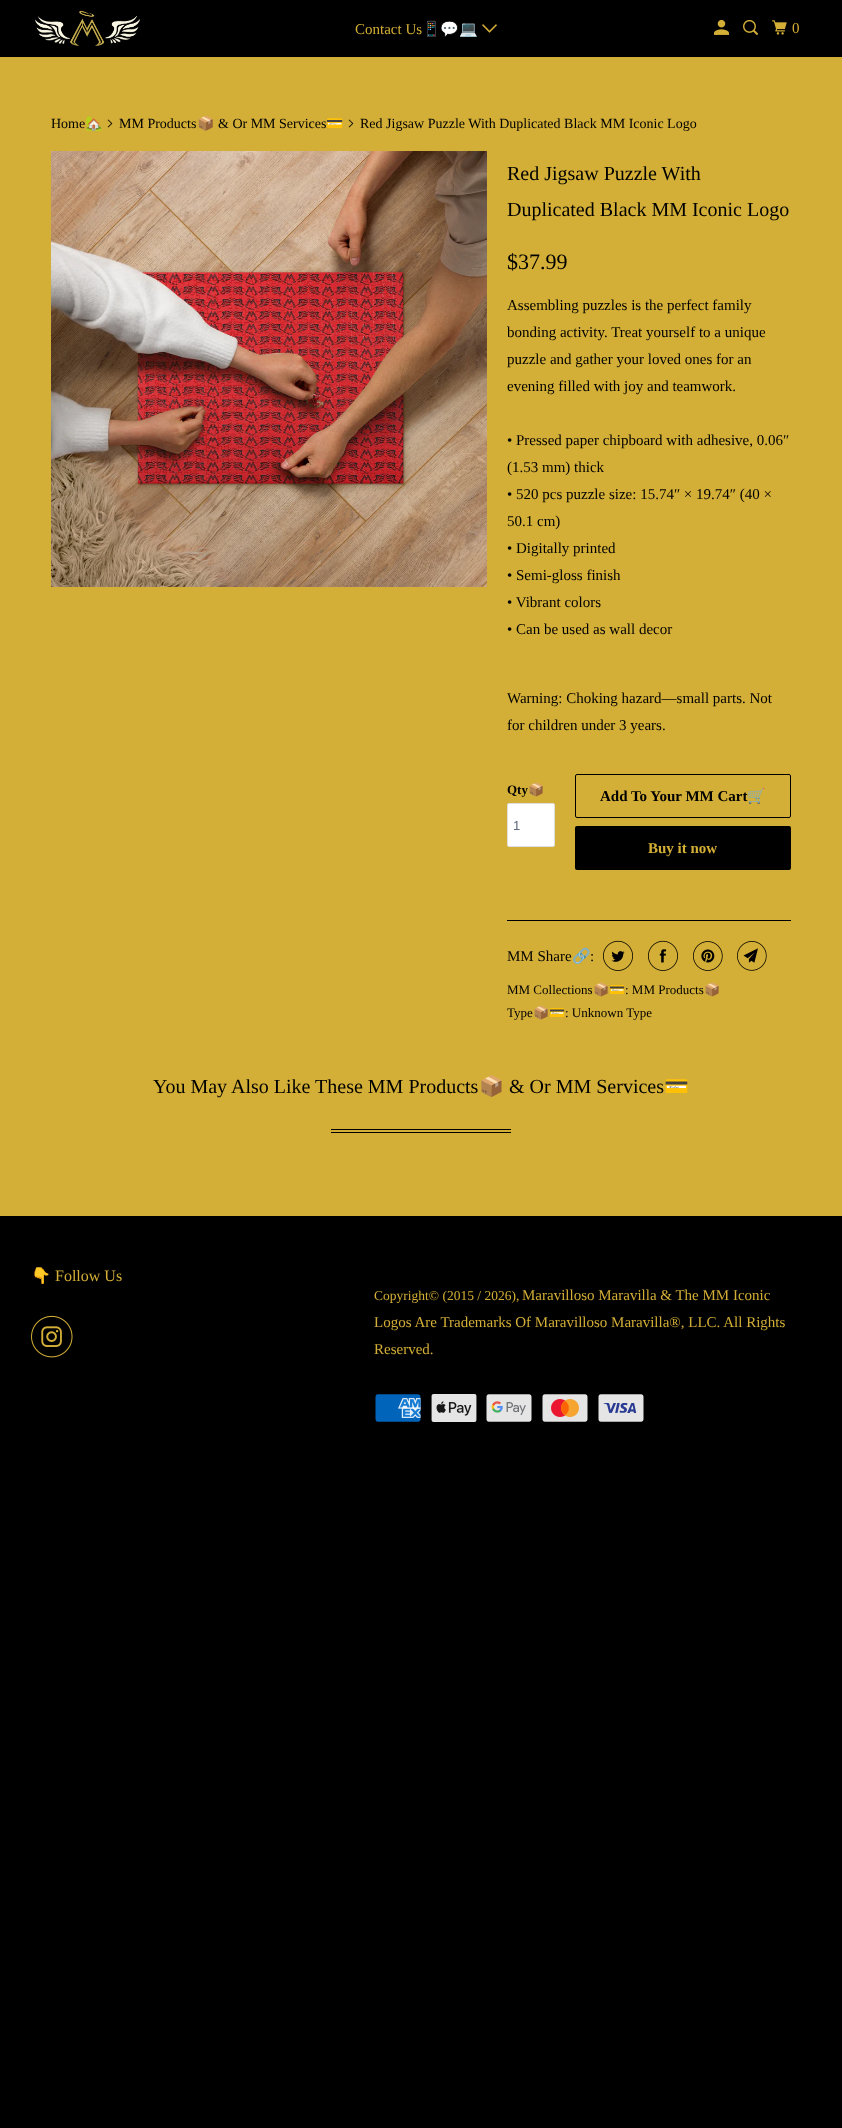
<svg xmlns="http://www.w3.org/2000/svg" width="842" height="2128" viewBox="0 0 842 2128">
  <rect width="100%" height="100%" fill="#000"/>
  <image x="35" y="11" width="105" height="35" href="img/1.png"/>
  <image x="482" y="24" width="15" height="9" href="img/2.png"/>
  <image x="714" y="19" width="15" height="16" href="img/3.png"/>
  <image x="743" y="19" width="15" height="16" href="img/4.png"/>
  <image x="772" y="20" width="15" height="15" href="img/5.png"/>
  <path d="M0 57h842v1159H0z" fill="#d4af37"/>
  <image x="107" y="119" width="6" height="9" href="img/6.png"/>
  <image x="348" y="119" width="6" height="9" href="img/6.png"/>
  <image x="51" y="151" width="436" height="436" href="img/7.png"/>
  <rect x="507.5" y="803.5" width="47" height="43" rx="1.5" fill="#fff" stroke="#dfdfdf"/>
  <rect x="575.5" y="774.5" width="215" height="43" rx="1.5" fill="none" stroke="#000"/>
  <rect x="575" y="826" width="216" height="44" rx="2" fill="#000"/>
  <path d="M507 920h284v1H507z" fill="#000"/>
  <image x="603" y="940" width="30" height="31" href="img/8.png"/>
  <image x="648" y="940" width="30" height="31" href="img/9.png"/>
  <image x="693" y="941" width="30" height="30" href="img/10.png"/>
  <image x="737" y="941" width="30" height="30" href="img/11.png"/>
  <path d="M331 1129h180v1H331z" fill="#000"/>
  <path d="M331 1132h180v1H331z" fill="#000"/>
  <image x="31" y="1315" width="42" height="43" href="img/12.png"/>
  <image x="375" y="1394" width="46" height="28" href="img/13.png"/>
  <image x="431" y="1394" width="46" height="28" href="img/14.png"/>
  <image x="486" y="1394" width="46" height="28" href="img/15.png"/>
  <image x="542" y="1394" width="46" height="28" href="img/16.png"/>
  <image x="598" y="1394" width="46" height="28" href="img/17.png"/>
  <text x="355" y="34" font-family="Liberation Serif" font-size="15" fill="#d4af37">Contact Us</text>
  <text x="422" y="34" font-family="Noto Color Emoji" font-size="15" fill="#d4af37">📱💬💻</text>
  <text x="792" y="33" font-family="Liberation Serif" font-size="15" fill="#d4af37">0</text>
  <text x="51" y="128" font-family="Liberation Serif" font-size="14" fill="#000">Home</text>
  <text x="85" y="128" font-family="Noto Color Emoji" font-size="14" fill="#000">🏡</text>
  <text x="119" y="128" font-family="Liberation Serif" font-size="14" fill="#000">MM Products</text>
  <text x="197" y="128" font-family="Noto Color Emoji" font-size="14" fill="#000">📦</text>
  <text x="218" y="128" font-family="Liberation Serif" font-size="14" fill="#000">&amp; Or MM Services</text>
  <text x="326" y="128" font-family="Noto Color Emoji" font-size="14" fill="#000">💳</text>
  <text x="360" y="128" font-family="Liberation Serif" font-size="14" fill="#000">Red Jigsaw Puzzle With Duplicated Black MM Iconic Logo</text>
  <g font-family="Liberation Serif" font-size="20" fill="#000">
    <text x="507" y="180">Red Jigsaw Puzzle With</text>
    <text x="507" y="216">Duplicated Black MM Iconic Logo</text>
  </g>
  <text x="507" y="269" font-family="Liberation Serif" font-size="22" fill="#000">$37.99</text>
  <g font-family="Liberation Serif" font-size="15" fill="#000">
    <text x="507" y="310">Assembling puzzles is the perfect family</text>
    <text x="507" y="337">bonding activity. Treat yourself to a unique</text>
    <text x="507" y="364">puzzle and gather your loved ones for an</text>
    <text x="507" y="391">evening filled with joy and teamwork.</text>
    <text x="507" y="445">• Pressed paper chipboard with adhesive, 0.06″</text>
    <text x="507" y="472">(1.53 mm) thick</text>
    <text x="507" y="499">• 520 pcs puzzle size: 15.74″ × 19.74″ (40 ×</text>
    <text x="507" y="526">50.1 cm)</text>
    <text x="507" y="553">• Digitally printed</text>
    <text x="507" y="580">• Semi-gloss finish</text>
    <text x="507" y="607">• Vibrant colors</text>
    <text x="507" y="634">• Can be used as wall decor</text>
    <text x="507" y="703">Warning: Choking hazard—small parts. Not</text>
    <text x="507" y="730">for children under 3 years.</text>
  </g>
  <text x="507" y="794" font-family="Liberation Serif" font-size="13" font-weight="bold" fill="#000">Qty</text>
  <text x="528" y="794" font-family="Noto Color Emoji" font-size="13" font-weight="bold" fill="#000">📦</text>
  <text x="513" y="830" font-family="Liberation Sans" font-size="13" fill="#5f6a7d">1</text>
  <text x="600" y="801" font-family="Liberation Serif" font-size="15" font-weight="bold" fill="#000">Add To Your MM Cart</text>
  <text x="747" y="801" font-family="Noto Color Emoji" font-size="15" font-weight="bold" fill="#000">🛒</text>
  <text x="648" y="853" font-family="Liberation Serif" font-size="15" font-weight="bold" fill="#d4af37">Buy it now</text>
  <text x="507" y="961" font-family="Liberation Serif" font-size="15" fill="#000">MM Share</text>
  <text x="572" y="961" font-family="Noto Color Emoji" font-size="15" fill="#000">🔗</text>
  <text x="590" y="961" font-family="Liberation Serif" font-size="15" fill="#000">:</text>
  <text x="507" y="994" font-family="Liberation Serif" font-size="13" fill="#000">MM Collections</text>
  <text x="593" y="994" font-family="Noto Color Emoji" font-size="13" fill="#000">📦💳</text>
  <text x="625" y="994" font-family="Liberation Serif" font-size="13" fill="#000">: MM Products</text>
  <text x="704" y="994" font-family="Noto Color Emoji" font-size="13" fill="#000">📦</text>
  <text x="507" y="1017" font-family="Liberation Serif" font-size="13" fill="#000">Type</text>
  <text x="533" y="1017" font-family="Noto Color Emoji" font-size="13" fill="#000">📦💳</text>
  <text x="565" y="1017" font-family="Liberation Serif" font-size="13" fill="#000">: Unknown Type</text>
  <text x="153" y="1093" font-family="Liberation Serif" font-size="20" fill="#000">You May Also Like These MM Products</text>
  <text x="479" y="1093" font-family="Noto Color Emoji" font-size="20" fill="#000">📦</text>
  <text x="509" y="1093" font-family="Liberation Serif" font-size="20" fill="#000">&amp; Or MM Services</text>
  <text x="664" y="1093" font-family="Noto Color Emoji" font-size="20" fill="#000">💳</text>
  <text x="31" y="1281" font-family="Noto Color Emoji" font-size="16" fill="#d4af37">👇</text>
  <text x="55" y="1281" font-family="Liberation Serif" font-size="16" fill="#d4af37">Follow Us</text>
  <text x="374" y="1300" font-family="Liberation Serif" font-size="13.5" fill="#d4af37">Copyright© (2015 / 2026),</text>
  <g font-family="Liberation Serif" font-size="15" fill="#d4af37">
    <text x="522" y="1300">Maravilloso Maravilla &amp; The MM Iconic</text>
    <text x="374" y="1327">Logos Are Trademarks Of Maravilloso Maravilla®, LLC. All Rights</text>
    <text x="374" y="1354">Reserved.</text>
  </g>
</svg>
